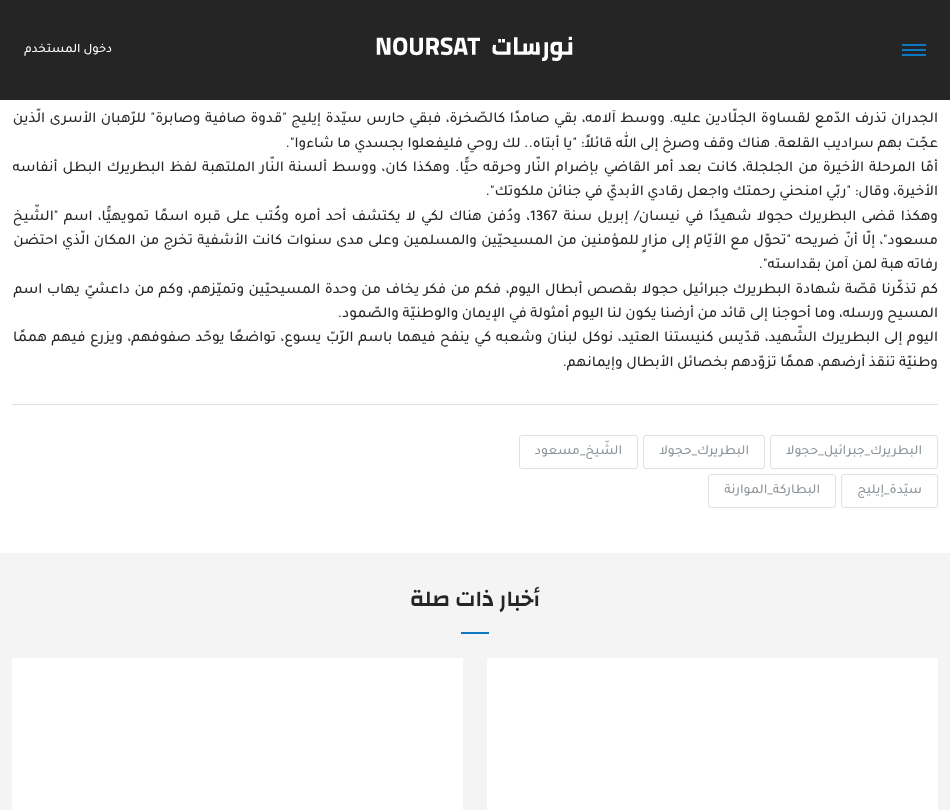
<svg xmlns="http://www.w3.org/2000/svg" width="950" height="810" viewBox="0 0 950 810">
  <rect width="100%" height="100%" fill="#fff"/>
  <path d="M0 0h950v100H0z" fill="#252525"/>
  <path d="M902 49h24v2H902z" fill="#0d79c5"/>
  <path d="M902 44h24v2H902z" fill="#0d79c5"/>
  <path d="M902 54h24v2H902z" fill="#0d79c5"/>
  <image x="376" y="36" width="197" height="25" href="img/1.png"/>
  <path d="M12 404h926v1H12z" fill="#e1e1e1"/>
  <rect x="770.5" y="435.5" width="167" height="33" rx="2.5" fill="none" stroke="#e1e1e1"/>
  <rect x="643.5" y="435.5" width="121" height="33" rx="2.5" fill="none" stroke="#e1e1e1"/>
  <rect x="519.5" y="435.5" width="118" height="33" rx="2.5" fill="none" stroke="#e1e1e1"/>
  <rect x="841.5" y="474.5" width="96" height="33" rx="2.5" fill="none" stroke="#e1e1e1"/>
  <rect x="708.5" y="474.5" width="127" height="33" rx="2.5" fill="none" stroke="#e1e1e1"/>
  <path d="M0 553h950v257H0z" fill="#f4f4f4"/>
  <path d="M461 632h28v2H461z" fill="#0d79c5"/>
  <path d="M487 658h451v152H487z" fill="#fff"/>
  <path d="M12 658h451v152H12z" fill="#fff"/>
  <text x="112" y="52" font-family="Tajawal" font-size="12.75" font-weight="500" direction="rtl" fill="#fff">دخول المستخدم</text>
  <g font-family="Tajawal" font-size="15.2" font-weight="500" direction="rtl" fill="#252525">
    <text x="938" y="122" word-spacing="0.9">الجدران تذرف الدّمع لقساوة الجلّادين عليه. ووسط آلامه، بقي صامدًا كالصّخرة، فبقي حارس سيّدة إيليج "قدوة صافية وصابرة" للرّهبان الأسرى الّذين</text>
    <text x="938" y="147">عجّت بهم سراديب القلعة. هناك وقف وصرخ إلى الله قائلاً: "يا أبتاه.. لك روحي فليفعلوا بجسدي ما شاءوا".</text>
    <text x="938" y="171" word-spacing="1.5">أمّا المرحلة الأخيرة من الجلجلة، كانت بعد أمر القاضي بإضرام النّار وحرقه حيًّا. وهكذا كان، ووسط ألسنة النّار الملتهبة لفظ البطريرك البطل أنفاسه</text>
    <text x="938" y="195">الأخيرة، وقال: "ربّي امنحني رحمتك واجعل رقادي الأبديّ في جنائن ملكوتك".</text>
    <text x="938" y="220" word-spacing="1.75">وهكذا قضى البطريرك حجولا شهيدًا في نيسان/ إبريل سنة</text>
  </g>
  <text x="530" y="220" font-family="Tajawal" font-size="15.2" font-weight="500" fill="#252525">1367</text>
  <g font-family="Tajawal" font-size="15.2" font-weight="500" direction="rtl" fill="#252525">
    <text x="530" y="220" word-spacing="1.75">، ودُفن هناك لكي لا يكتشف أحد أمره وكُتب على قبره اسمًا تمويهيًّا، اسم "الشّيخ</text>
    <text x="938" y="244" word-spacing="0.6">مسعود"، إلّا أنّ ضريحه "تحوّل مع الأيّام إلى مزارٍ للمؤمنين من المسيحيّين والمسلمين وعلى مدى سنوات كانت الأشفية تخرج من المكان الّذي احتضن</text>
    <text x="938" y="268">رفاته هبة لمن آمن بقداسته".</text>
    <text x="938" y="293" word-spacing="1">كم تذكّرنا قصّة شهادة البطريرك جبرائيل حجولا بقصص أبطال اليوم، فكم من فكر يخاف من وحدة المسيحيّين وتميّزهم، وكم من داعشيّ يهاب اسم</text>
    <text x="938" y="317">المسيح ورسله، وما أحوجنا إلى قائد من أرضنا يكون لنا اليوم أمثولة في الإيمان والوطنيّة والصّمود.</text>
    <text x="938" y="341" word-spacing="1">اليوم إلى البطريرك الشّهيد، قدّيس كنيستنا العتيد، نوكل لبنان وشعبه كي ينفح فيهما باسم الرّبّ يسوع، تواضعًا يوحّد صفوفهم، ويزرع فيهم هممًا</text>
    <text x="938" y="366">وطنيّة تنقذ أرضهم، هممًا تزوّدهم بخصائل الأبطال وإيمانهم.</text>
  </g>
  <g font-family="Tajawal" font-size="13.6" font-weight="500" direction="rtl" fill="#8e9599">
    <text x="922" y="454">البطريرك_جبرائيل_حجولا</text>
    <text x="749" y="454">البطريرك_حجولا</text>
    <text x="622" y="454">الشّيخ_مسعود</text>
    <text x="922" y="493">سيّدة_إيليج</text>
    <text x="820" y="493">البطاركة_الموارنة</text>
  </g>
  <text x="540" y="606" font-family="Changa" font-size="22.5" font-weight="600" direction="rtl" fill="#252525">أخبار ذات صلة</text>
</svg>
